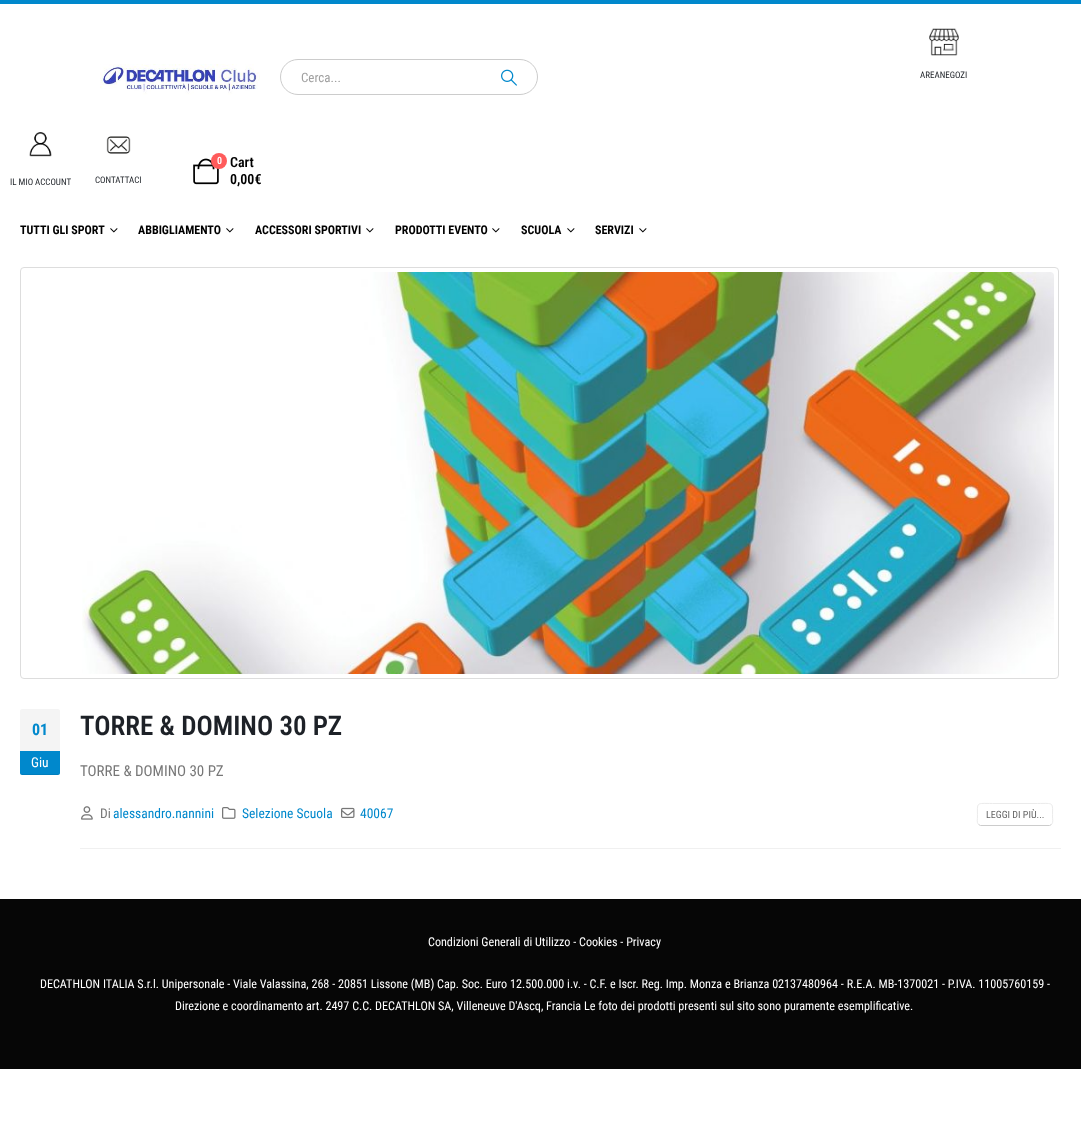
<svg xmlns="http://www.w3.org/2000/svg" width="1081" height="1138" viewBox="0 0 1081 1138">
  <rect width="100%" height="100%" fill="#fff"/>
  <path d="M0 0h1081v4H0z" fill="#08c"/>
  <image x="100" y="64" width="160" height="31" href="img/1.png"/>
  <rect x="280.5" y="59.5" width="257" height="35" rx="17.5" fill="none" stroke="#ccc"/>
  <image x="501" y="69" width="16" height="17" href="img/2.png"/>
  <image x="929" y="28" width="30" height="28" href="img/3.png"/>
  <image x="29" y="132" width="23" height="25" href="img/4.png"/>
  <image x="106" y="136" width="25" height="18" href="img/5.png"/>
  <image x="193" y="158" width="26" height="27" href="img/6.png"/>
  <circle cx="219" cy="161" r="8" fill="#ff5b5b"/>
  <image x="110" y="228" width="8" height="5" href="img/7.png"/>
  <image x="226" y="228" width="8" height="5" href="img/7.png"/>
  <image x="366" y="228" width="8" height="5" href="img/7.png"/>
  <image x="492" y="228" width="8" height="5" href="img/7.png"/>
  <image x="567" y="228" width="8" height="5" href="img/7.png"/>
  <image x="639" y="228" width="8" height="5" href="img/7.png"/>
  <path d="M80 848h981v1H80z" fill="#f0f0f0"/>
  <rect x="20.5" y="267.5" width="1038" height="411" rx="3.5" fill="none" stroke="#ddd"/>
  <image x="82" y="272" width="972" height="402" href="img/8.png"/>
  <path d="M22 709H58C59 709 60 710 60 711V751H20V711C20 710 21 709 22 709Z" fill="#f4f4f4"/>
  <path d="M20 751H60V773C60 774 59 775 58 775H22C21 775 20 774 20 773Z" fill="#08c"/>
  <path d="M20 772C20 776 24 775 28 775H52C56 775 60 776 60 772C60 773 59 774 58 774H22C21 774 20 773 20 772Z" fill="#00000012"/>
  <image x="81" y="806" width="12" height="14" href="img/9.png"/>
  <image x="222" y="807" width="14" height="12" href="img/10.png"/>
  <image x="341" y="807" width="14" height="11" href="img/11.png"/>
  <path d="M1051.5 824.5L1049.5 825.5H980.5L978.5 824.5" fill="none" stroke="#ccc"/>
  <path d="M978.5 824.5C976.5 822.5 977.5 819 977.5 817C977.5 801.5 975.5 803.5 992.5 803.5H1037.5C1054.5 803.5 1052.5 801.5 1052.5 817C1052.5 819 1053.5 822.5 1051.5 824.5" fill="none" stroke="#ebebeb"/>
  <path d="M0 899h1081v170H0z" fill="#060606"/>
  <text x="301" y="82" font-family="Roboto Condensed" font-size="13" fill="#a0a0a0">Cerca...</text>
  <g font-family="Roboto Condensed" font-size="9" fill="#1d2127">
    <text x="920" y="78">AREANEGOZI</text>
    <text x="10" y="185">IL MIO ACCOUNT</text>
    <text x="95" y="183">CONTATTACI</text>
  </g>
  <text x="217" y="164" font-family="Roboto Condensed" font-size="10" font-weight="600" fill="#fff">0</text>
  <g font-family="Roboto Condensed" font-size="14" font-weight="600" fill="#000">
    <text x="230" y="167">Cart</text>
    <text x="230" y="184">0,00€</text>
  </g>
  <g font-family="Roboto Condensed" font-size="12" font-weight="bold" fill="#000">
    <text x="20" y="234">TUTTI GLI SPORT</text>
    <text x="138" y="234">ABBIGLIAMENTO</text>
    <text x="255" y="234">ACCESSORI SPORTIVI</text>
    <text x="395" y="234">PRODOTTI EVENTO</text>
    <text x="521" y="234">SCUOLA</text>
    <text x="595" y="234">SERVIZI</text>
  </g>
  <text x="32" y="735" font-family="Roboto Condensed" font-size="16" font-weight="bold" fill="#08c">01</text>
  <text x="31" y="767" font-family="Roboto Condensed" font-size="13.5" fill="#fff">Giu</text>
  <text x="80" y="735" font-family="Roboto Condensed" font-size="27" font-weight="600" fill="#1d2127">TORRE &amp; DOMINO 30 PZ</text>
  <text x="80" y="776" font-family="Roboto Condensed" font-size="15" fill="#777">TORRE &amp; DOMINO 30 PZ</text>
  <text x="100" y="818" font-family="Roboto Condensed" font-size="13.5" fill="#777">Di</text>
  <g font-family="Roboto Condensed" font-size="13.5" fill="#08c">
    <text x="113" y="818">alessandro.nannini</text>
    <text x="242" y="818">Selezione Scuola</text>
    <text x="360" y="818">40067</text>
  </g>
  <text x="986" y="818" font-family="Roboto Condensed" font-size="10" fill="#666">LEGGI DI PIÙ...</text>
  <g font-family="Roboto Condensed" font-size="12.15" fill="#fff">
    <text x="428" y="946">Condizioni Generali di Utilizzo - Cookies - Privacy</text>
    <text x="40" y="988">DECATHLON ITALIA S.r.l. Unipersonale - Viale Valassina, 268 - 20851 Lissone (MB) Cap. Soc. Euro 12.500.000 i.v. - C.F. e Iscr. Reg. Imp. Monza e Brianza 02137480964 - R.E.A. MB-1370021 - P.IVA. 11005760159 -</text>
    <text x="175" y="1010">Direzione e coordinamento art. 2497 C.C. DECATHLON SA, Villeneuve D'Ascq, Francia Le foto dei prodotti presenti sul sito sono puramente esemplificative.</text>
  </g>
</svg>
